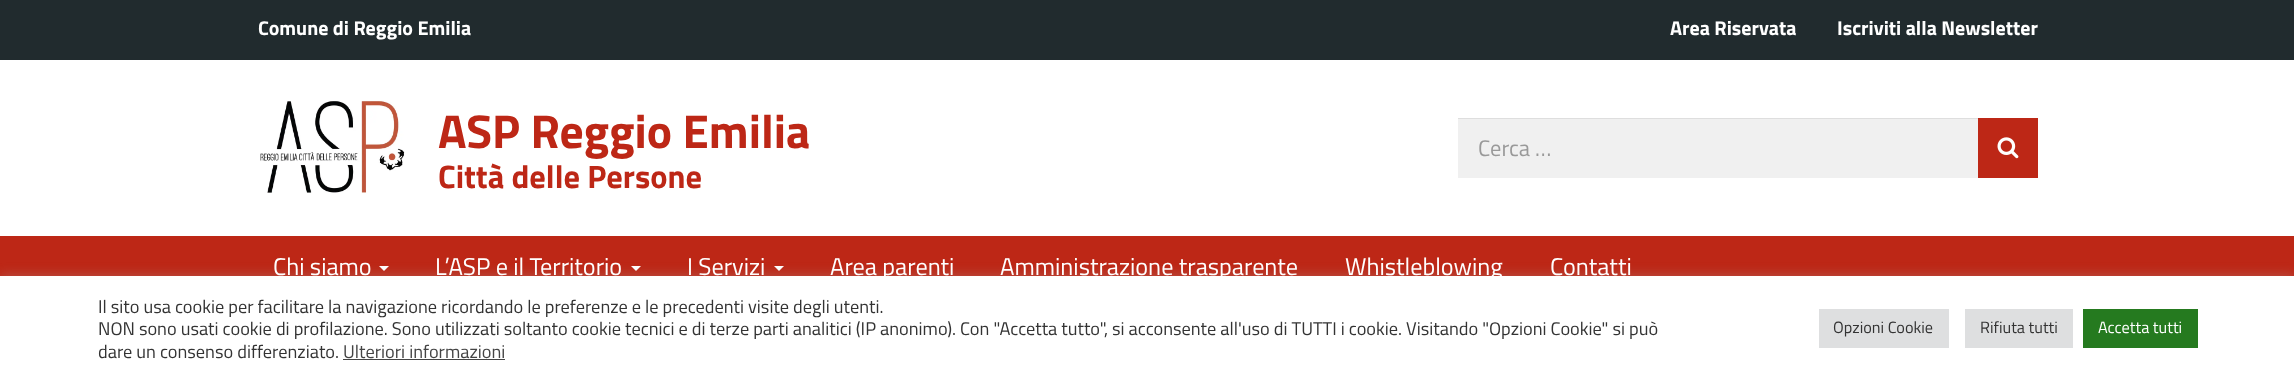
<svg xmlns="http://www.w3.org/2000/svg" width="2294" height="378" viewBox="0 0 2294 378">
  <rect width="100%" height="100%" fill="#fff"/>
  <path d="M0 0h2294v60H0z" fill="#212b2e"/>
  <image x="260" y="100" width="145" height="93" href="img/1.png"/>
  <path d="M1458 119h520v59H1458z" fill="#f0f0f0"/>
  <path d="M1458 118h520v1H1458z" fill="#dedede"/>
  <path d="M1978 118h60v60H1978z" fill="#bd2716"/>
  <image x="1997" y="137" width="22" height="22" href="img/2.png"/>
  <path d="M0 236h2294v40H0z" fill="#bd2716"/>
  <path d="M379 266H389L384 271Z" fill="#fff"/>
  <path d="M631 266H641L636 271Z" fill="#fff"/>
  <path d="M774 266H784L779 271Z" fill="#fff"/>
  <path d="M0 275h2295v103H0z" fill="#acabab4d" filter="blur(6px)"/>
  <path d="M0 276h2294v102H0z" fill="#fff"/>
  <path d="M343 359h162v1H343z" fill="#444"/>
  <path d="M1819 309h130v39H1819z" fill="#dedfe0"/>
  <path d="M1965 309h108v39H1965z" fill="#dedfe0"/>
  <path d="M2083 309h115v39H2083z" fill="#257a1f"/>
  <g font-family="Titillium Web" font-size="20" font-weight="bold" fill="#fff">
    <text x="258" y="35">Comune di Reggio Emilia</text>
    <text x="1670" y="35">Area Riservata</text>
    <text x="1837" y="35">Iscriviti alla Newsletter</text>
  </g>
  <text x="438" y="148" font-family="Titillium Web" font-size="47.5" font-weight="bold" fill="#bd2716">ASP Reggio Emilia</text>
  <text x="438" y="188" font-family="Titillium Web" font-size="32.5" font-weight="bold" fill="#bd2716">Città delle Persone</text>
  <text x="1478" y="156" font-family="Titillium Web" font-size="22.5" fill="#999">Cerca …</text>
  <g font-family="Titillium Web" font-size="24.25" fill="#fff">
    <text x="273" y="275">Chi siamo</text>
    <text x="435" y="275">L’ASP e il Territorio</text>
    <text x="687" y="275">I Servizi</text>
    <text x="830" y="275">Area parenti</text>
    <text x="1000" y="275">Amministrazione trasparente</text>
    <text x="1345" y="275">Whistleblowing</text>
    <text x="1550" y="275">Contatti</text>
  </g>
  <g font-family="Titillium Web" font-size="18.33" fill="#333">
    <text x="98" y="313">Il sito usa cookie per facilitare la navigazione ricordando le preferenze e le precedenti visite degli utenti.</text>
    <text x="98" y="335">NON sono usati cookie di profilazione. Sono utilizzati soltanto cookie tecnici e di terze parti analitici (IP anonimo). Con "Accetta tutto", si acconsente all'uso di TUTTI i cookie. Visitando "Opzioni Cookie" si può</text>
    <text x="98" y="358">dare un consenso differenziato.</text>
  </g>
  <text x="343" y="358" font-family="Titillium Web" font-size="18.33" fill="#444">Ulteriori informazioni</text>
  <g font-family="Titillium Web" font-size="16.25" fill="#333">
    <text x="1833" y="333">Opzioni Cookie</text>
    <text x="1980" y="333">Rifiuta tutti</text>
  </g>
  <text x="2098" y="333" font-family="Titillium Web" font-size="16.25" fill="#fff">Accetta tutti</text>
</svg>
